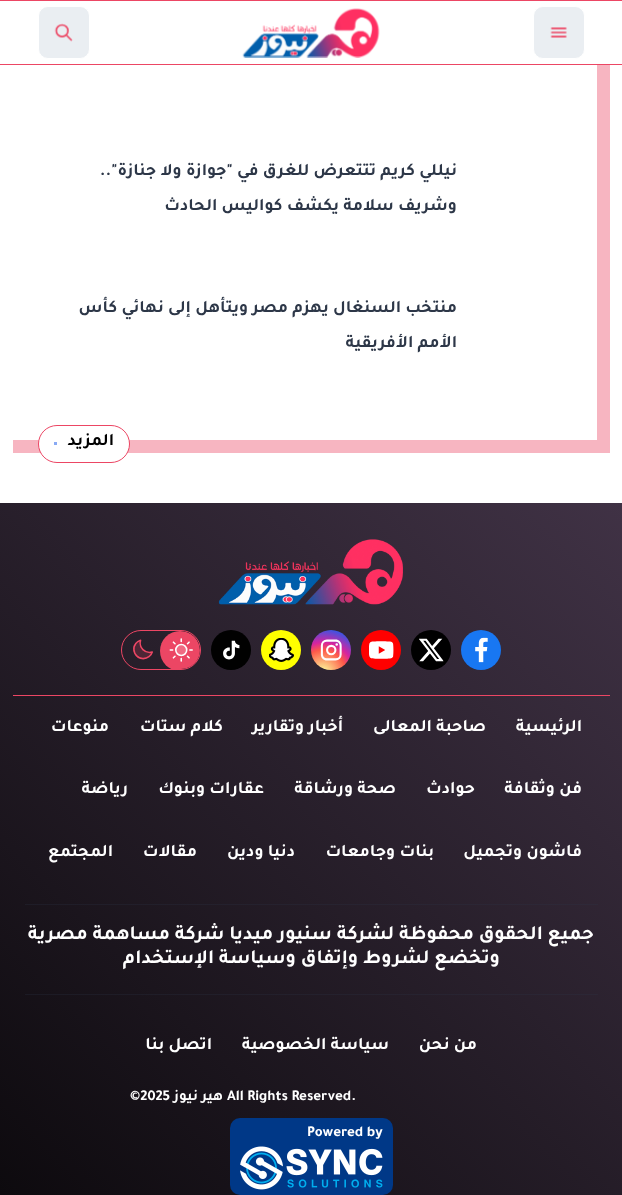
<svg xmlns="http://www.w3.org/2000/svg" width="622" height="1195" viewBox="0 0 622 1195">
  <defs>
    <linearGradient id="g1" gradientUnits="userSpaceOnUse" x1="-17" y1="1178" x2="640" y2="520"><stop offset="0" stop-color="#0d0a0e"/><stop offset="1" stop-color="#403245"/></linearGradient>
    <linearGradient id="g2" gradientUnits="userSpaceOnUse" x1="-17" y1="1178" x2="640" y2="520"><stop offset="0" stop-color="#15151d"/><stop offset="1" stop-color="#3b3346"/></linearGradient>
    <radialGradient id="g3" gradientUnits="userSpaceOnUse" cx="323" cy="673" r="51"><stop offset="0" stop-color="#fdf497"/><stop offset="0.05" stop-color="#fdf497"/><stop offset="0.45" stop-color="#fd5949"/><stop offset="0.6" stop-color="#d6249f"/><stop offset="0.9" stop-color="#285aeb"/></radialGradient>
    <clipPath id="clip1"><rect x="123" y="631" width="77" height="38" rx="19"/></clipPath>
  </defs>
  <rect width="100%" height="100%" fill="#fff"/>
  <path d="M19.5 -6.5h584v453H19.5z" fill="none" stroke="#f7b5c1" stroke-width="13"/>
  <path d="M13 1h597v63H13z" fill="#fff"/>
  <path d="M0 0h622v1H0z" fill="#ec4664"/>
  <path d="M0 64h622v1H0z" fill="#ec4664"/>
  <rect x="533.5" y="6.5" width="51" height="52" rx="9.5" fill="#eaeef2" stroke="#fff"/>
  <image x="550" y="27" width="17" height="11" href="img/1.png"/>
  <image x="242" y="8" width="138" height="50" href="img/2.png"/>
  <rect x="38.5" y="6.5" width="51" height="52" rx="9.5" fill="#eaeef2" stroke="#fff"/>
  <image x="54" y="23" width="19" height="19" href="img/3.png"/>
  <path d="M13 65h13v375H13z" fill="#fff"/>
  <rect x="38.5" y="425.5" width="91" height="37" rx="18.5" fill="#fff" stroke="#ec4664"/>
  <path d="M54 442h3v3H54z" fill="#89aaf4"/>
  <path d="M0 503h622v692H0z" fill="url(#g1)"/>
  <path d="M25 994h573v1H25z" fill="url(#g2)"/>
  <path d="M25 904h573v1H25z" fill="url(#g2)"/>
  <path d="M13 695h597v1H13z" fill="#ec4664"/>
  <image x="218" y="539" width="185" height="66" href="img/4.png"/>
  <circle cx="481" cy="650" r="20" fill="#1877f2"/>
  <image x="475" y="637" width="13" height="26" href="img/5.png"/>
  <circle cx="431" cy="650" r="20" fill="#000"/>
  <image x="419" y="638" width="25" height="24" href="img/6.png"/>
  <circle cx="381" cy="650" r="20" fill="#f00"/>
  <image x="369" y="641" width="25" height="18" href="img/7.png"/>
  <circle cx="331" cy="650" r="20" fill="url(#g3)"/>
  <image x="320" y="639" width="22" height="22" href="img/8.png"/>
  <circle cx="281" cy="650" r="20" fill="#ff0"/>
  <image x="269" y="638" width="25" height="24" href="img/9.png"/>
  <circle cx="231" cy="650" r="20" fill="#010101"/>
  <image x="223" y="640" width="17" height="20" href="img/10.png"/>
  <rect x="121.5" y="630.5" width="79" height="39" rx="19.5" fill="none" stroke="#ec4664"/>
  <g clip-path="url(#clip1)">
    <circle cx="180" cy="651" r="20" fill="#ec4664"/>
  </g>
  <image x="169" y="638" width="24" height="24" href="img/11.png"/>
  <image x="133" y="639" width="20" height="21" href="img/12.png"/>
  <rect x="230" y="1118" width="163" height="77" rx="10" fill="#003887"/>
  <image x="240" y="1146" width="143" height="44" href="img/13.png"/>
  <g font-family="Tajawal" font-size="17.5" font-weight="bold" direction="rtl" fill="#2d3748">
    <text x="457" y="175">نيللي كريم تتتعرض للغرق في "جوازة ولا جنازة"..</text>
    <text x="457" y="210">وشريف سلامة يكشف كواليس الحادث</text>
    <text x="457" y="312">منتخب السنغال يهزم مصر ويتأهل إلى نهائي كأس</text>
    <text x="457" y="347">الأمم الأفريقية</text>
  </g>
  <text x="114" y="445" font-family="Tajawal" font-size="17.5" font-weight="bold" direction="rtl" fill="#000">المزيد</text>
  <g font-family="Tajawal" font-size="17.5" font-weight="bold" direction="rtl" fill="#fff">
    <text x="582" y="731">الرئيسية</text>
    <text x="486" y="731">صاحبة المعالى</text>
    <text x="343" y="731">أخبار وتقارير</text>
    <text x="223" y="731">كلام ستات</text>
    <text x="109" y="731">منوعات</text>
    <text x="582" y="793">فن وثقافة</text>
    <text x="475" y="793">حوادث</text>
    <text x="396" y="793">صحة ورشاقة</text>
    <text x="264" y="793">عقارات وبنوك</text>
    <text x="128" y="793">رياضة</text>
    <text x="582" y="856">فاشون وتجميل</text>
    <text x="434" y="856">بنات وجامعات</text>
    <text x="295" y="856">دنيا ودين</text>
    <text x="197" y="856">مقالات</text>
    <text x="113" y="856">المجتمع</text>
  </g>
  <g font-family="Tajawal" font-size="20" font-weight="bold" direction="rtl" fill="#fff">
    <text x="594" y="939">جميع الحقوق محفوظة لشركة سنيور ميديا شركة مساهمة مصرية</text>
    <text x="500" y="963">وتخضع لشروط وإتفاق وسياسة الإستخدام</text>
  </g>
  <g font-family="Tajawal" font-size="17.5" font-weight="bold" direction="rtl" fill="#fff">
    <text x="477" y="1049">من نحن</text>
    <text x="389" y="1049">سياسة الخصوصية</text>
    <text x="212" y="1049">اتصل بنا</text>
  </g>
  <text x="227" y="1100" font-family="Tajawal" font-size="15" font-weight="bold" fill="#fff">All Rights Reserved.</text>
  <text x="223" y="1100" font-family="Tajawal" font-size="15" font-weight="bold" direction="rtl" fill="#fff">هير نيوز</text>
  <g font-family="Tajawal" font-size="15" font-weight="bold" fill="#fff">
    <text x="130" y="1100">©2025</text>
    <text x="307" y="1136">Powered by</text>
  </g>
</svg>
